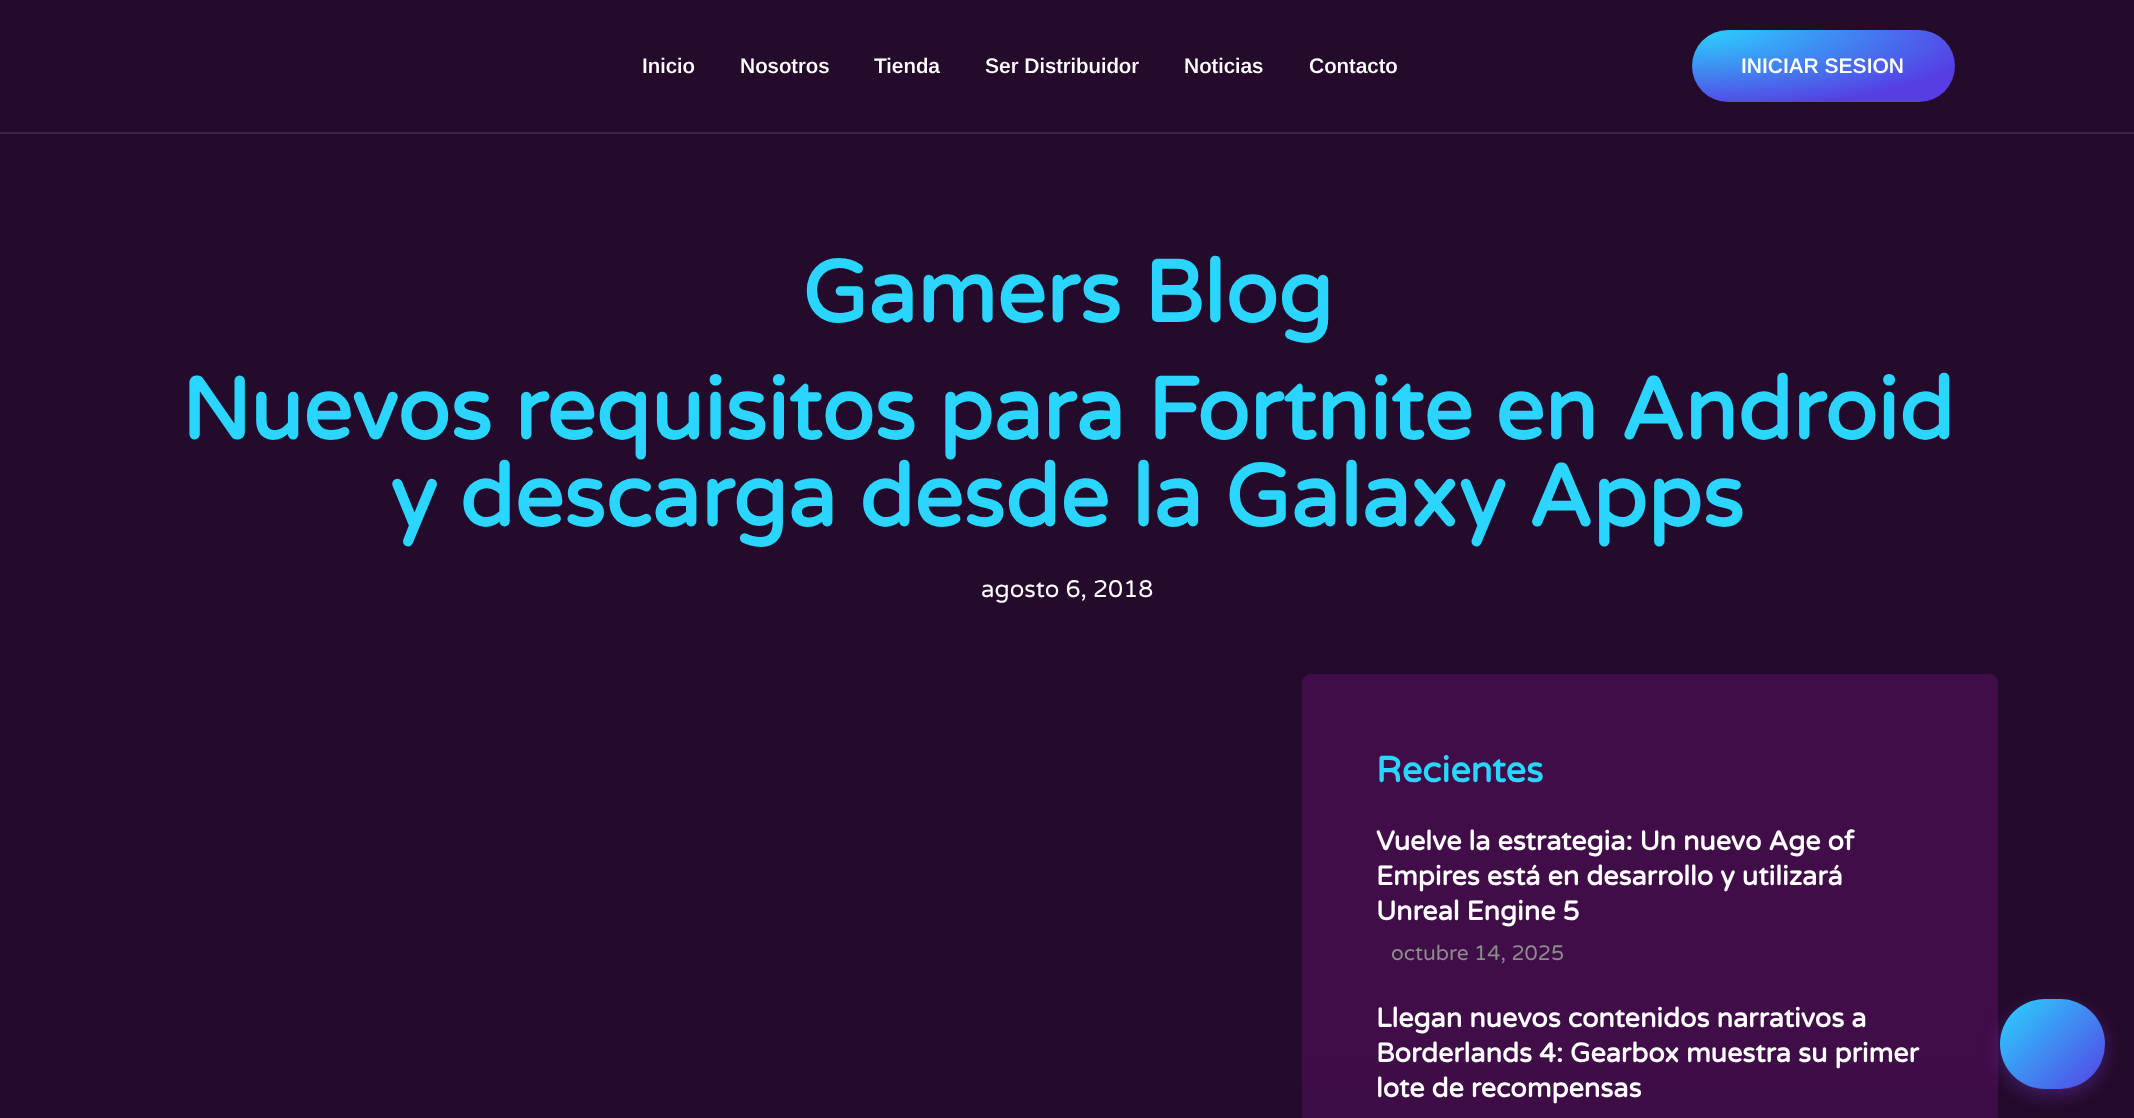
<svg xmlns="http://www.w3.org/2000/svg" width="2134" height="1118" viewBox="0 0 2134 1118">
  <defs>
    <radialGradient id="g1" gradientUnits="userSpaceOnUse" cx="0" cy="0" r="1" gradientTransform="matrix(371 0 0 102 1692 30)"><stop offset="0" stop-color="#2ad5ff"/><stop offset="0.8" stop-color="#563de4"/></radialGradient>
    <linearGradient id="g2" gradientUnits="userSpaceOnUse" x1="1650" y1="674" x2="1650" y2="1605"><stop offset="0.4" stop-color="#400d48"/><stop offset="1" stop-color="#240a2b"/></linearGradient>
    <linearGradient id="g3" gradientUnits="userSpaceOnUse" x1="2003" y1="995" x2="2101" y2="1093"><stop offset="0" stop-color="#2ad4fe"/><stop offset="1" stop-color="#5542e5"/></linearGradient>
  </defs>
  <rect width="100%" height="100%" fill="#240a2b"/>
  <path d="M0 132h2134v2H0z" fill="#3c2542"/>
  <rect x="1692" y="30" width="263" height="72" rx="36" fill="url(#g1)"/>
  <rect x="1302" y="674" width="696" height="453" rx="9" fill="url(#g2)"/>
  <rect x="2000" y="1005" width="105" height="90" rx="45" fill="#854fff4d" filter="blur(9px)"/>
  <rect x="2000" y="999" width="105" height="90" rx="45" fill="url(#g3)"/>
  <g font-family="Arimo" font-size="21" font-weight="600" fill="#fff">
    <text x="642" y="73">Inicio</text>
    <text x="740" y="73">Nosotros</text>
    <text x="874" y="73">Tienda</text>
    <text x="985" y="73">Ser Distribuidor</text>
    <text x="1184" y="73">Noticias</text>
    <text x="1309" y="73">Contacto</text>
    <text x="1741" y="73">INICIAR SESION</text>
  </g>
  <g font-family="Varela Round" font-size="87" font-weight="bold" fill="#2ad5ff">
    <text x="802" y="322">Gamers Blog</text>
    <text x="181" y="439">Nuevos requisitos para Fortnite en Android</text>
    <text x="390" y="526">y descarga desde la Galaxy Apps</text>
  </g>
  <text x="981" y="597" font-family="Varela Round" font-size="24" fill="#fff">agosto 6, 2018</text>
  <text x="1376" y="782" font-family="Varela Round" font-size="36" font-weight="bold" fill="#2ad5ff">Recientes</text>
  <g font-family="Varela Round" font-size="27" font-weight="bold" fill="#fff">
    <text x="1376" y="850">Vuelve la estrategia: Un nuevo Age of</text>
    <text x="1376" y="885">Empires está en desarrollo y utilizará</text>
    <text x="1376" y="920">Unreal Engine 5</text>
  </g>
  <text x="1391" y="960" font-family="Varela Round" font-size="21" fill="#8c8c8c">octubre 14, 2025</text>
  <g font-family="Varela Round" font-size="27" font-weight="bold" fill="#fff">
    <text x="1376" y="1027">Llegan nuevos contenidos narrativos a</text>
    <text x="1376" y="1062">Borderlands 4: Gearbox muestra su primer</text>
    <text x="1376" y="1097">lote de recompensas</text>
  </g>
</svg>
